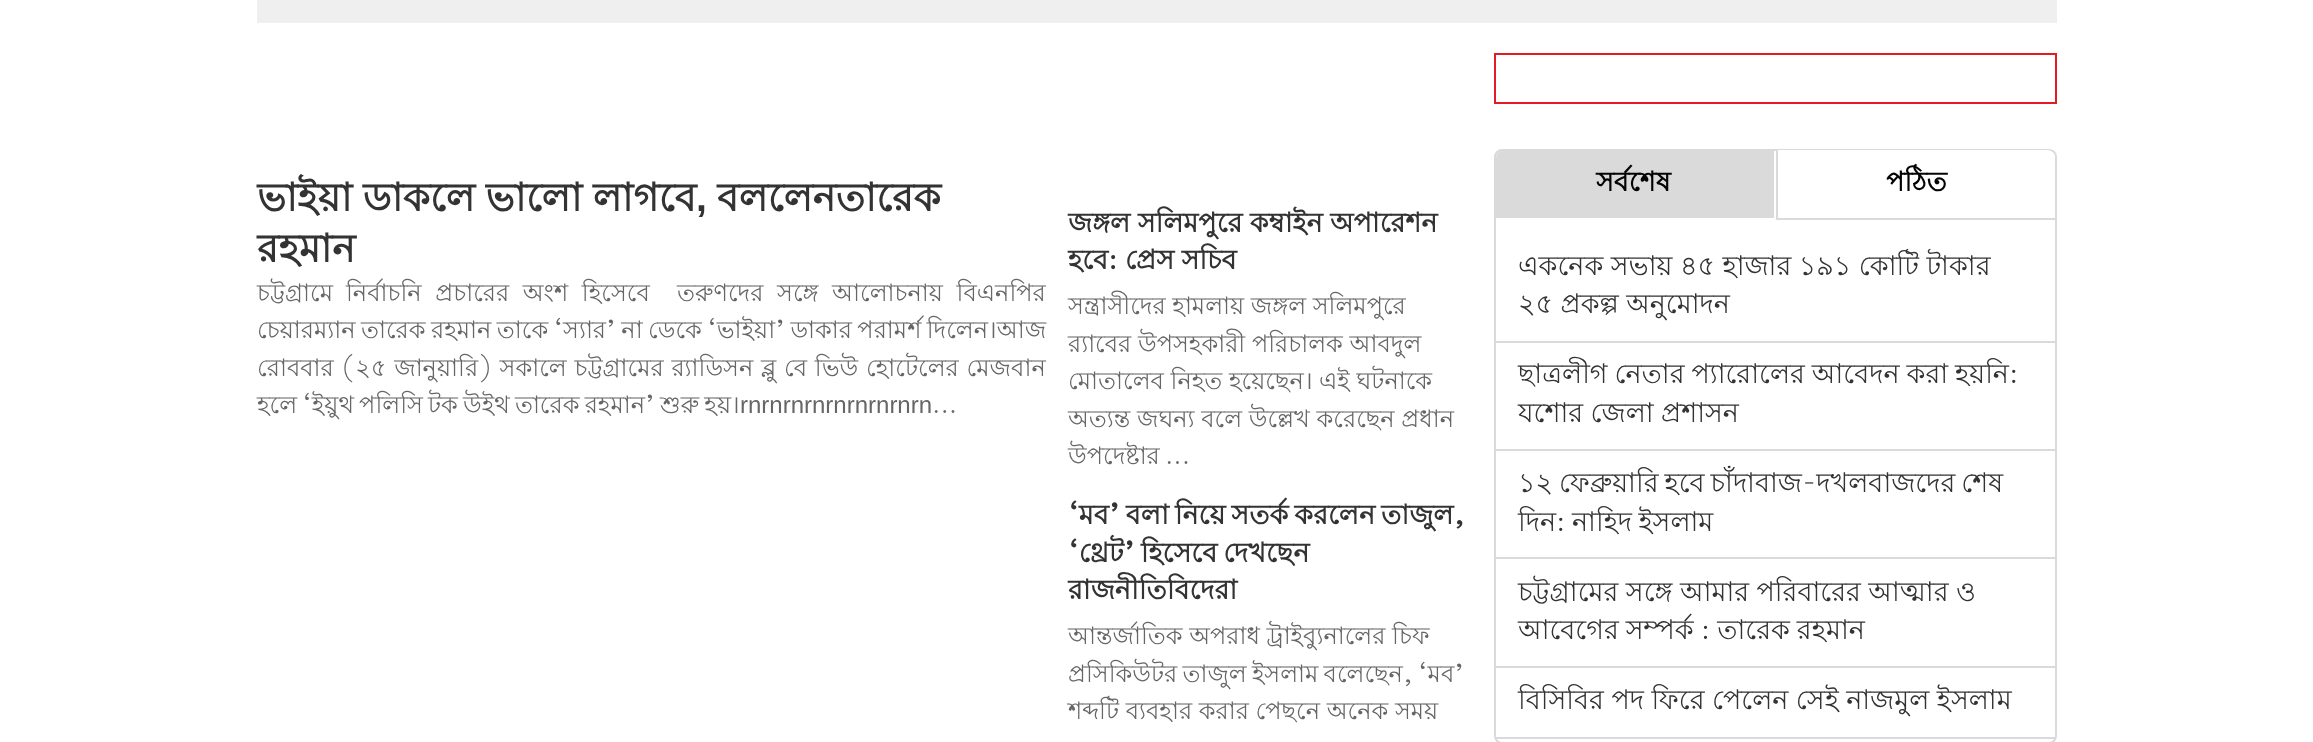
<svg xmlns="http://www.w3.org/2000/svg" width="2313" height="742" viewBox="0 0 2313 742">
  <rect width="100%" height="100%" fill="#fff"/>
  <path d="M257 0h1800v23H257z" fill="#efefef"/>
  <path d="M1495 54h561v49H1495z" fill="none" stroke="#e51a22" stroke-width="2"/>
  <rect x="1495" y="150" width="561" height="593" rx="7" fill="none" stroke="#dadada" stroke-width="2"/>
  <path d="M1504 150H1773V218H1496V158C1496 153.5 1499.5 150 1504 150Z" fill="#dadada"/>
  <path d="M1773 150h1v68H1773z" fill="#dadada"/>
  <path d="M1776 150H2047C2051.5 150 2055 153.5 2055 158V219H1776Z" fill="#fff"/>
  <path d="M1776 218h279v2H1776z" fill="#dadada"/>
  <path d="M1776 150h2v69H1776z" fill="#dadada"/>
  <path d="M1496 341h559v2H1496z" fill="#dadada"/>
  <path d="M1496 449h559v2H1496z" fill="#dadada"/>
  <path d="M1496 557h559v2H1496z" fill="#dadada"/>
  <path d="M1496 666h559v2H1496z" fill="#dadada"/>
  <path d="M1496 737h559v2H1496z" fill="#dadada"/>
  <text x="257" y="211" font-family="Lohit Bengali" font-size="39" font-weight="bold" fill="#333">ভাইয়া ডাকলে ভালো লাগবে</text>
  <text x="696" y="211" font-family="Liberation Sans" font-size="39" font-weight="bold" fill="#333">,</text>
  <g font-family="Lohit Bengali" font-size="39" font-weight="bold" fill="#333">
    <text x="717" y="211">বললেনতারেক</text>
    <text x="257" y="262">রহমান</text>
  </g>
  <g font-family="Lohit Bengali" font-size="24" fill="#666">
    <text x="257" y="301">চট্টগ্রামে</text>
    <text x="346" y="301" word-spacing="7">নির্বাচনি প্রচারের অংশ হিসেবে</text>
    <text x="677" y="301" word-spacing="7">তরুণদের সঙ্গে আলোচনায় বিএনপির</text>
    <text x="257" y="338" word-spacing="-1.25">চেয়ারম্যান তারেক রহমান তাকে ‘স্যার’ না ডেকে ‘ভাইয়া’ ডাকার পরামর্শ দিলেন।আজ</text>
    <text x="257" y="376" word-spacing="1.1">রোববার (২৫ জানুয়ারি) সকালে চট্টগ্রামের র‌্যাডিসন ব্লু বে ভিউ হোটেলের মেজবান</text>
    <text x="257" y="413" word-spacing="-1.5">হলে ‘ইয়ুথ পলিসি টক উইথ তারেক রহমান’ শুরু হয়।</text>
  </g>
  <text x="740" y="413" font-family="Liberation Sans" font-size="24" fill="#666">rnrnrnrnrnrnrnrnrn</text>
  <text x="932" y="413" font-family="Lohit Bengali" font-size="24" fill="#666">...</text>
  <g font-family="Lohit Bengali" font-size="27" font-weight="bold" fill="#333">
    <text x="1068" y="232">জঙ্গল সলিমপুরে কম্বাইন অপারেশন</text>
    <text x="1068" y="269">হবে: প্রেস সচিব</text>
  </g>
  <g font-family="Lohit Bengali" font-size="24" fill="#666">
    <text x="1068" y="314">সন্ত্রাসীদের হামলায় জঙ্গল সলিমপুরে</text>
    <text x="1068" y="352">র‌্যাবের উপসহকারী পরিচালক আবদুল</text>
    <text x="1068" y="389">মোতালেব নিহত হয়েছেন। এই ঘটনাকে</text>
    <text x="1068" y="427">অত্যন্ত জঘন্য বলে উল্লেখ করেছেন প্রধান</text>
    <text x="1068" y="464" word-spacing="-1.5">উপদেষ্টার ...</text>
  </g>
  <g font-family="Lohit Bengali" font-size="27" font-weight="bold" fill="#333">
    <text x="1068" y="524" word-spacing="-1.5">‘মব’ বলা নিয়ে সতর্ক করলেন তাজুল,</text>
    <text x="1068" y="562" word-spacing="-1.5">‘থ্রেট’ হিসেবে দেখছেন</text>
    <text x="1068" y="599">রাজনীতিবিদেরা</text>
  </g>
  <g font-family="Lohit Bengali" font-size="24" fill="#666">
    <text x="1068" y="644">আন্তর্জাতিক অপরাধ ট্রাইব্যুনালের চিফ</text>
    <text x="1068" y="682" word-spacing="-1.5">প্রসিকিউটর তাজুল ইসলাম বলেছেন, ‘মব’</text>
    <text x="1068" y="719">শব্দটি ব্যবহার করার পেছনে অনেক সময়</text>
  </g>
  <g font-family="Lohit Bengali" font-size="27" font-weight="bold" fill="#030303">
    <text x="1596" y="191">সর্বশেষ</text>
    <text x="1886" y="191">পঠিত</text>
  </g>
  <g font-family="Lohit Bengali" font-size="27" fill="#333">
    <text x="1518" y="275">একনেক সভায় ৪৫ হাজার ১৯১ কোটি টাকার</text>
    <text x="1518" y="313">২৫ প্রকল্প অনুমোদন</text>
    <text x="1518" y="383" word-spacing="-0.5">ছাত্রলীগ নেতার প্যারোলের আবেদন করা হয়নি:</text>
    <text x="1518" y="422">যশোর জেলা প্রশাসন</text>
    <text x="1518" y="492" word-spacing="-1.5">১২ ফেব্রুয়ারি হবে চাঁদাবাজ-দখলবাজদের শেষ</text>
    <text x="1518" y="531" word-spacing="-1">দিন: নাহিদ ইসলাম</text>
    <text x="1518" y="601">চট্টগ্রামের সঙ্গে আমার পরিবারের আত্মার ও</text>
    <text x="1518" y="639" word-spacing="-0.5">আবেগের সম্পর্ক : তারেক রহমান</text>
    <text x="1518" y="709">বিসিবির পদ ফিরে পেলেন সেই নাজমুল ইসলাম</text>
  </g>
</svg>
